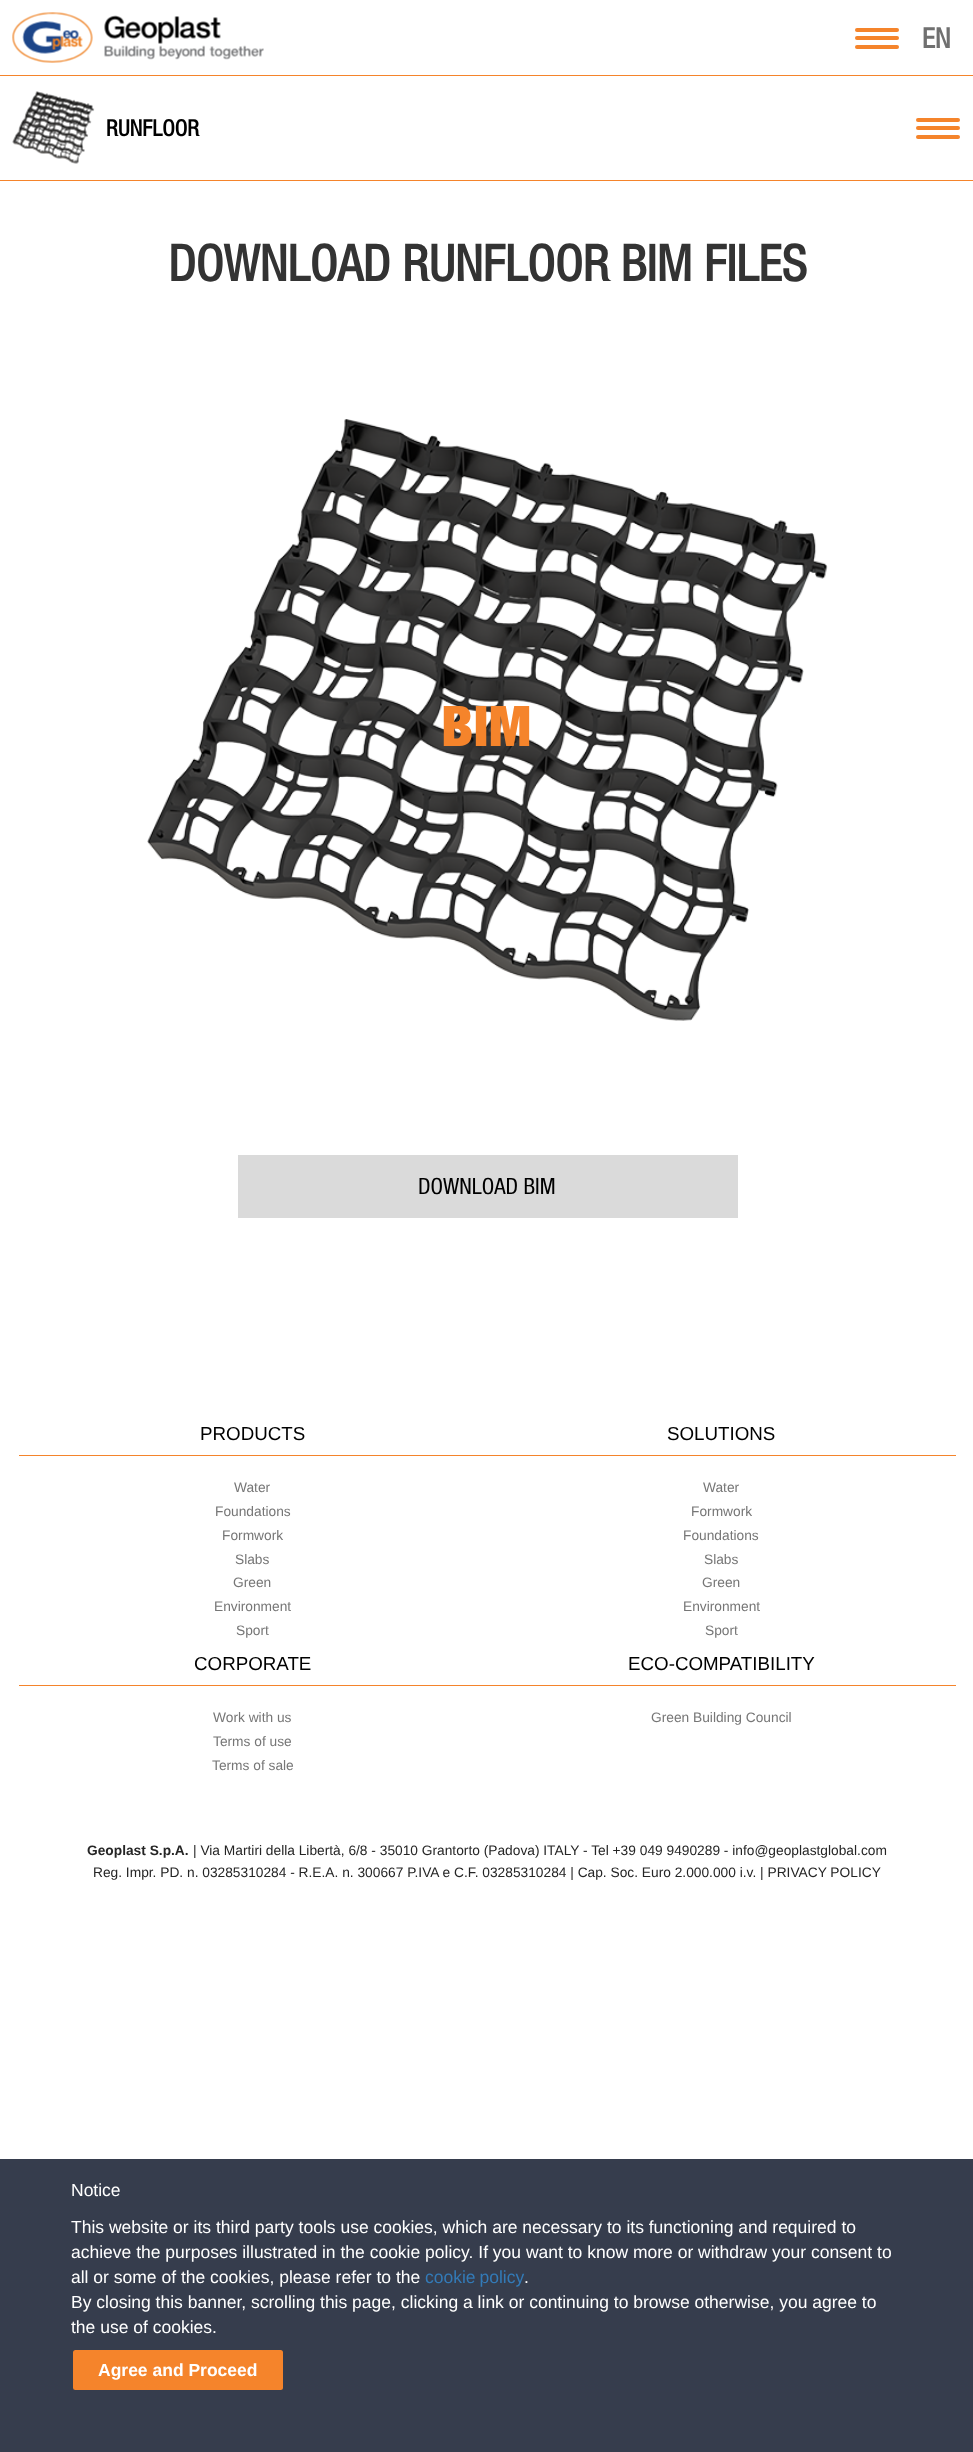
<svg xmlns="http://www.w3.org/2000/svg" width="973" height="2452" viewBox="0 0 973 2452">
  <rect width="100%" height="100%" fill="#fff"/>
  <path d="M0 75h973v1H0z" fill="#f5842b"/>
  <image x="12" y="12" width="252" height="51" href="img/1.png"/>
  <rect x="855" y="36" width="44" height="4" rx="2" fill="#f5842b"/>
  <rect x="855" y="28" width="44" height="4" rx="2" fill="#f5842b"/>
  <rect x="855" y="45" width="44" height="4" rx="2" fill="#f5842b"/>
  <path d="M0 180h973v1H0z" fill="#f5842b"/>
  <image x="12" y="91" width="83" height="73" href="img/2.png"/>
  <rect x="916" y="126" width="44" height="4" rx="2" fill="#f5842b"/>
  <rect x="916" y="118" width="44" height="4" rx="2" fill="#f5842b"/>
  <rect x="916" y="135" width="44" height="4" rx="2" fill="#f5842b"/>
  <image x="147" y="419" width="681" height="602" href="img/3.png"/>
  <path d="M238 1155h500v63H238z" fill="#dadada"/>
  <path d="M19 1455h937v1H19z" fill="#f5842b"/>
  <path d="M19 1685h937v1H19z" fill="#f5842b"/>
  <path d="M0 2159h973v293H0z" fill="#363d4d"/>
  <rect x="73" y="2350" width="210" height="40" rx="2.5" fill="#f5842b"/>
  <text x="922" y="48" font-family="Helvetica Neue" font-size="28" font-weight="bold" fill="#707070">EN</text>
  <text x="106" y="136" font-family="Helvetica Neue" font-size="22.5" font-weight="bold" fill="#000">RUNFLOOR</text>
  <text x="168" y="281" font-family="Helvetica Neue" font-size="50" font-weight="bold" fill="#333">DOWNLOAD RUNFLOOR BIM FILES</text>
  <text x="441" y="746" font-family="Helvetica Neue" font-size="56" font-weight="900" letter-spacing="0.5" fill="#f5842b">BIM</text>
  <text x="418" y="1194" font-family="Helvetica Neue" font-size="22.5" fill="#000">DOWNLOAD BIM</text>
  <text x="200" y="1440" font-family="Liberation Sans" font-size="18.75" fill="#000">PRODUCTS</text>
  <g font-family="Liberation Sans" font-size="13.75" fill="#767676">
    <text x="234" y="1492">Water</text>
    <text x="215" y="1516">Foundations</text>
    <text x="222" y="1540">Formwork</text>
    <text x="235" y="1564">Slabs</text>
    <text x="233" y="1587">Green</text>
    <text x="214" y="1611">Environment</text>
    <text x="236" y="1635">Sport</text>
  </g>
  <text x="667" y="1440" font-family="Liberation Sans" font-size="18.75" fill="#000">SOLUTIONS</text>
  <g font-family="Liberation Sans" font-size="13.75" fill="#767676">
    <text x="703" y="1492">Water</text>
    <text x="691" y="1516">Formwork</text>
    <text x="683" y="1540">Foundations</text>
    <text x="704" y="1564">Slabs</text>
    <text x="702" y="1587">Green</text>
    <text x="683" y="1611">Environment</text>
    <text x="705" y="1635">Sport</text>
  </g>
  <text x="194" y="1670" font-family="Liberation Sans" font-size="18.75" fill="#000">CORPORATE</text>
  <g font-family="Liberation Sans" font-size="13.75" fill="#767676">
    <text x="213" y="1722">Work with us</text>
    <text x="213" y="1746">Terms of use</text>
    <text x="212" y="1770">Terms of sale</text>
  </g>
  <text x="628" y="1670" font-family="Liberation Sans" font-size="18.75" fill="#000">ECO-COMPATIBILITY</text>
  <text x="651" y="1722" font-family="Liberation Sans" font-size="13.75" fill="#767676">Green Building Council</text>
  <text x="87" y="1855" font-family="Liberation Sans" font-size="13.75" font-weight="bold" fill="#252525">Geoplast S.p.A.</text>
  <g font-family="Liberation Sans" font-size="13.75" fill="#252525">
    <text x="193" y="1855">| Via Martiri della Libertà, 6/8 - 35010 Grantorto (Padova) ITALY - Tel +39 049 9490289 - info@geoplastglobal.com</text>
    <text x="93" y="1877">Reg. Impr. PD. n. 03285310284 - R.E.A. n. 300667 P.IVA e C.F. 03285310284 | Cap. Soc. Euro 2.000.000 i.v. | PRIVACY POLICY</text>
  </g>
  <g font-family="Liberation Sans" font-size="17.5" fill="#fff">
    <text x="71" y="2196">Notice</text>
    <text x="71" y="2233">This website or its third party tools use cookies, which are necessary to its functioning and required to</text>
    <text x="71" y="2258">achieve the purposes illustrated in the cookie policy. If you want to know more or withdraw your consent to</text>
    <text x="71" y="2283">all or some of the cookies, please refer to the</text>
  </g>
  <text x="425" y="2283" word-spacing="-1" font-family="Liberation Sans" font-size="17.5" fill="#337ab7">cookie policy</text>
  <g font-family="Liberation Sans" font-size="17.5" fill="#fff">
    <text x="524" y="2283">.</text>
    <text x="71" y="2308">By closing this banner, scrolling this page, clicking a link or continuing to browse otherwise, you agree to</text>
    <text x="71" y="2333">the use of cookies.</text>
  </g>
  <text x="98" y="2376" font-family="Liberation Sans" font-size="17.5" font-weight="bold" fill="#fff">Agree and Proceed</text>
</svg>
